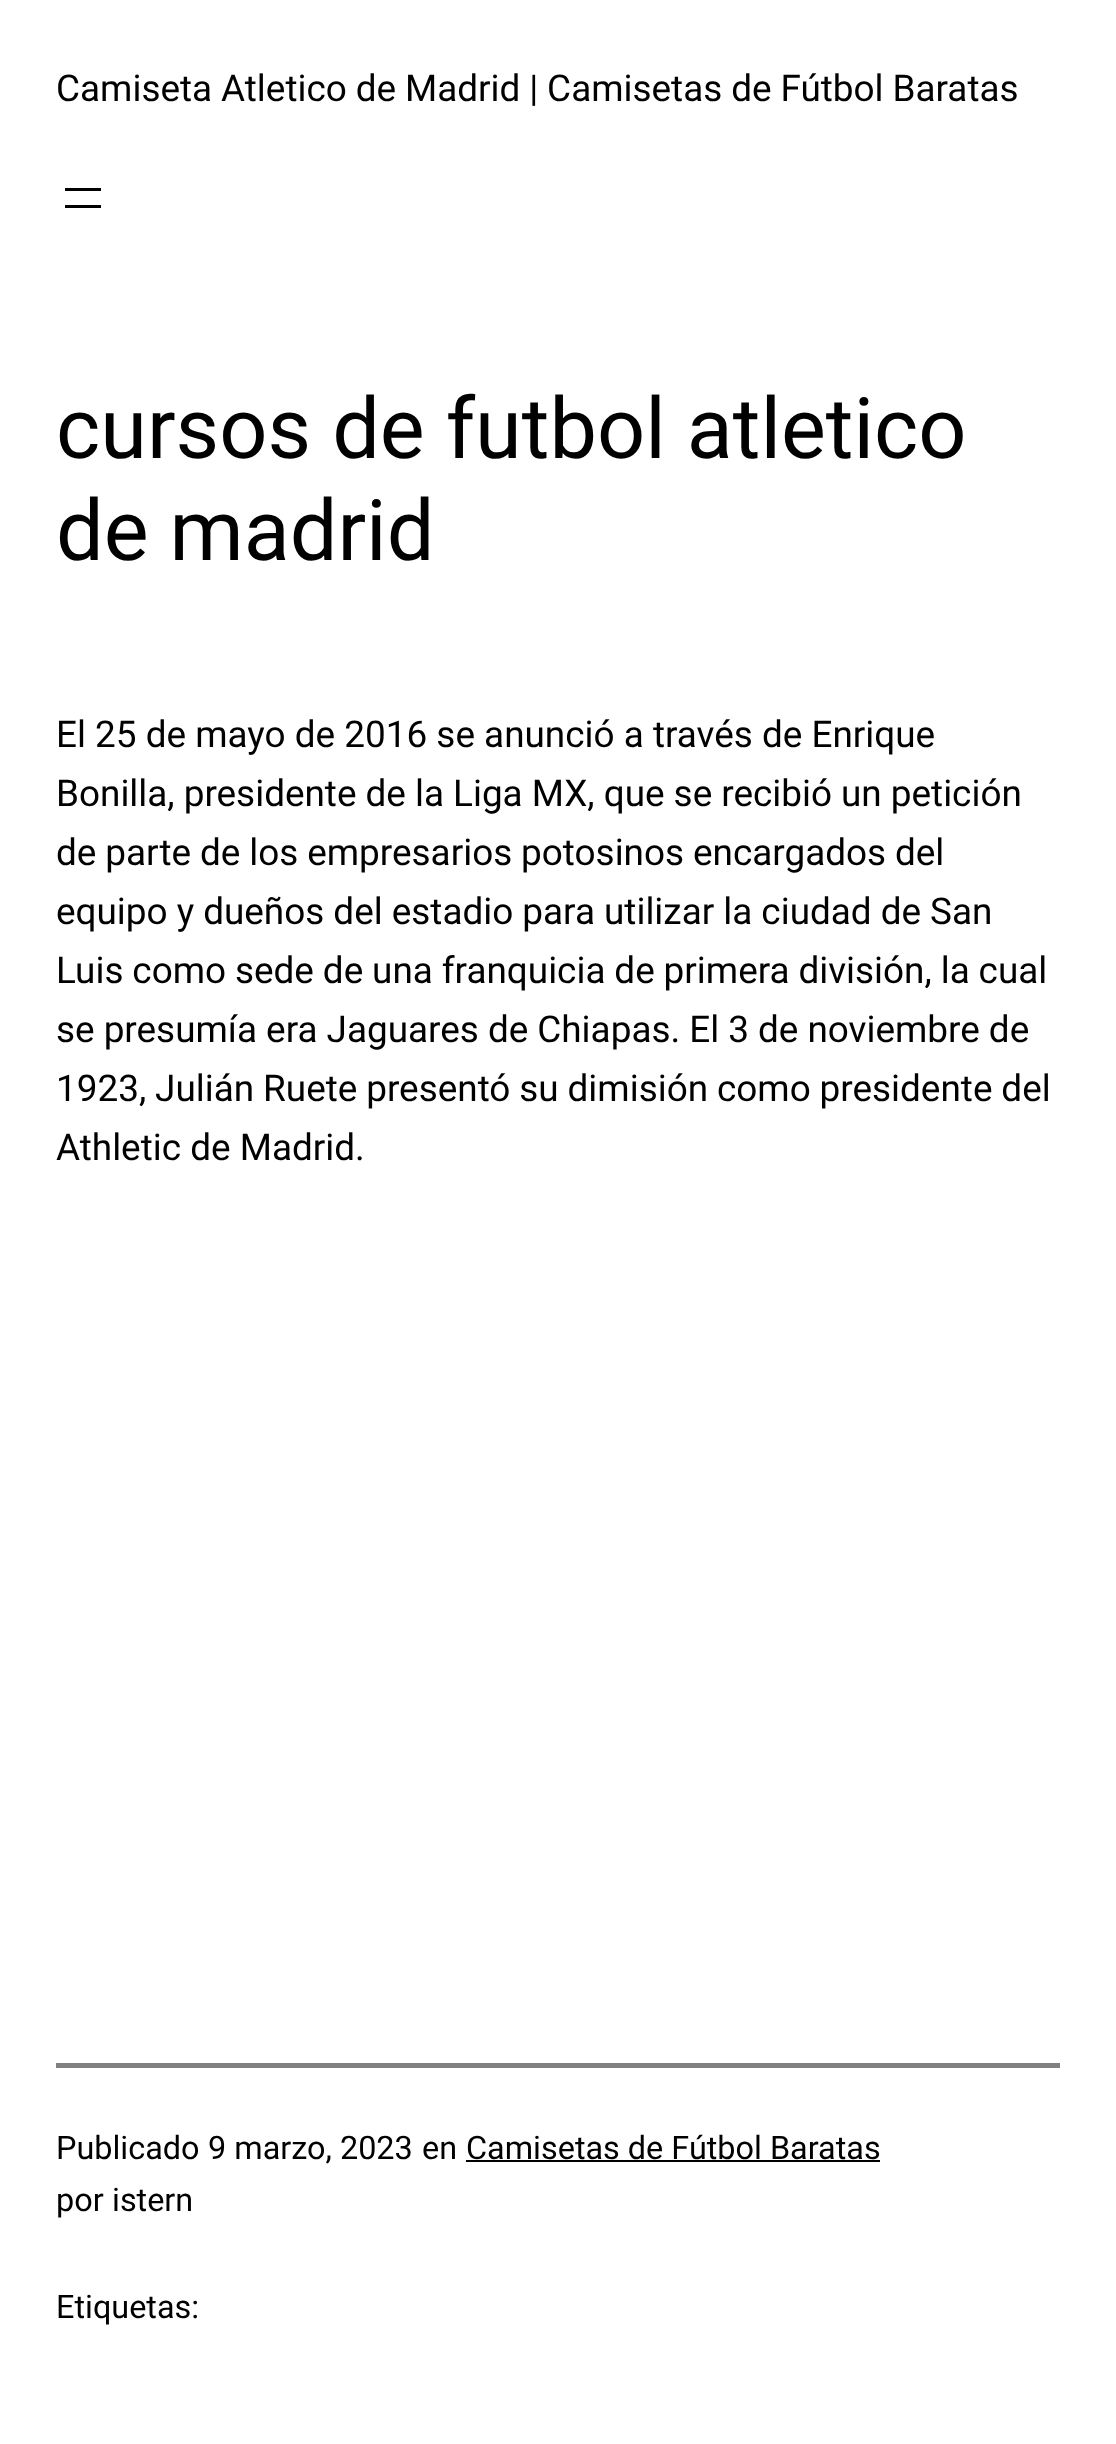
<svg xmlns="http://www.w3.org/2000/svg" width="1116" height="2444" viewBox="0 0 1116 2444">
  <rect width="100%" height="100%" fill="#fff"/>
  <path d="M65 188h36v3H65z" fill="#000"/>
  <path d="M65 205h36v3H65z" fill="#000"/>
  <path d="M56 2063h1004v5H56z" fill="#808080"/>
  <path d="M466 2160h414v2H466z" fill="#000"/>
  <text x="56" y="101" word-spacing="-0.25" font-family="Roboto" font-size="36.9" fill="#000">Camiseta Atletico de Madrid | Camisetas de Fútbol Baratas</text>
  <g font-family="Roboto" font-size="84.6" fill="#000">
    <text x="56" y="458">cursos de futbol atletico</text>
    <text x="56" y="560">de madrid</text>
  </g>
  <g font-family="Roboto" font-size="36.9" fill="#000">
    <text x="56" y="747">El 25 de mayo de 2016 se anunció a través de Enrique</text>
    <text x="56" y="806" word-spacing="-0.1">Bonilla, presidente de la Liga MX, que se recibió un petición</text>
    <text x="56" y="865" word-spacing="-0.25">de parte de los empresarios potosinos encargados del</text>
    <text x="56" y="924" word-spacing="-0.1">equipo y dueños del estadio para utilizar la ciudad de San</text>
    <text x="56" y="983" word-spacing="-0.25">Luis como sede de una franquicia de primera división, la cual</text>
    <text x="56" y="1042" word-spacing="-0.1">se presumía era Jaguares de Chiapas. El 3 de noviembre de</text>
    <text x="56" y="1101" word-spacing="-0.25">1923, Julián Ruete presentó su dimisión como presidente del</text>
    <text x="56" y="1160">Athletic de Madrid.</text>
  </g>
  <g font-family="Roboto" font-size="32.4" fill="#000">
    <text x="56" y="2159">Publicado</text>
    <text x="208" y="2159">9 marzo, 2023</text>
    <text x="422" y="2159">en</text>
    <text x="466" y="2159">Camisetas de Fútbol Baratas</text>
    <text x="56" y="2211">por</text>
    <text x="112" y="2211">istern</text>
    <text x="56" y="2318">Etiquetas:</text>
  </g>
</svg>
